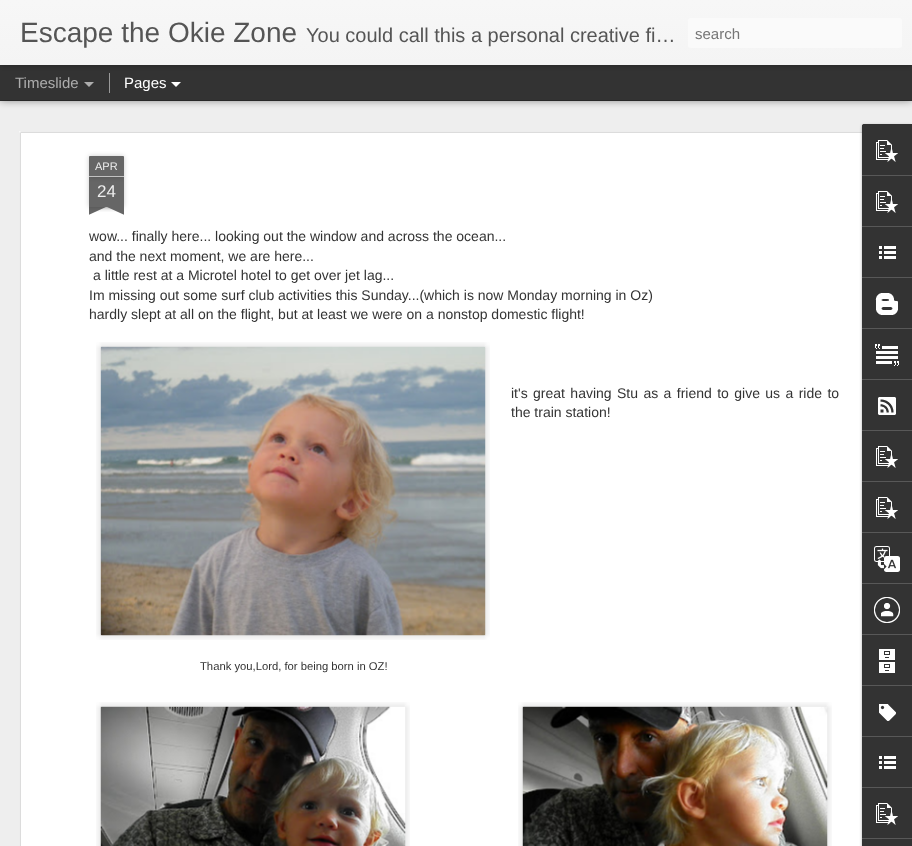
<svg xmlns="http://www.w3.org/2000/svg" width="912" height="846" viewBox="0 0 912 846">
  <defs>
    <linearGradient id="g1" gradientUnits="userSpaceOnUse" x1="0" y1="0" x2="0" y2="65"><stop offset="0" stop-color="#f7f7f7"/><stop offset="1" stop-color="#f4f4f4"/></linearGradient>
    <clipPath id="clip1"><path d="M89 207h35v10H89z"/></clipPath>
    <clipPath id="clip2"><path d="M89 207h35v10H89z"/></clipPath>
  </defs>
  <rect width="100%" height="100%" fill="#333"/>
  <path d="M0 101h912v745H0z" fill="#eee"/>
  <path d="M0 65h912v35H0z" fill="#00000080" filter="blur(4px)"/>
  <path d="M0 65h912v35H0z" fill="#333"/>
  <path d="M109 73h1v20H109z" fill="#999"/>
  <path d="M0 0h912v65H0z" fill="#0000004d" filter="blur(2.5px)"/>
  <path d="M0 0h912v65H0z" fill="url(#g1)"/>
  <rect x="688" y="18" width="214" height="30" rx="3" fill="#fafafa"/>
  <path d="M84 82H94L89 87Z" fill="#adadad"/>
  <path d="M171 82H181L176 87Z" fill="#fff"/>
  <path d="M19 131h843v715H19z" fill="#fff"/>
  <image x="19" y="131" width="843" height="715" href="img/1.png"/>
  <path d="M89 177h35v30H89z" fill="#00000033" filter="blur(2.5px)"/>
  <path d="M89 177h35v30H89z" fill="#666"/>
  <rect x="89" y="156" width="35" height="21" rx="1" fill="#00000033" filter="blur(2.5px)"/>
  <path d="M90 156H123C123.5 156 124 156.5 124 157V177H89V157C89 156.5 89.5 156 90 156Z" fill="#666"/>
  <path d="M89 176h35v1H89z" fill="#c2c2c2"/>
  <g clip-path="url(#clip1)">
    <path d="M80 197h50v10H80z" fill="#00000033" filter="blur(2.5px)"/>
  </g>
  <g clip-path="url(#clip2)">
    <path d="M80 208L126 187L130 196L84 217Z" fill="#666"/>
  </g>
  <g clip-path="url(#clip1)">
    <path d="M83 197h50v10H83z" fill="#00000033" filter="blur(2.5px)"/>
  </g>
  <g clip-path="url(#clip2)">
    <path d="M87 187L133 208L129 217L83 196Z" fill="#666"/>
  </g>
  <image x="96" y="342" width="394" height="298" href="img/2.png"/>
  <image x="100" y="346" width="386" height="290" href="img/3.png"/>
  <image x="96" y="702" width="314" height="144" href="img/4.png"/>
  <image x="100" y="706" width="306" height="140" href="img/5.png"/>
  <image x="518" y="702" width="314" height="144" href="img/6.png"/>
  <image x="522" y="706" width="306" height="140" href="img/7.png"/>
  <rect x="862" y="125" width="50" height="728" rx="2" fill="#0000004d" filter="blur(1.5px)"/>
  <path d="M864 124H912V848H864C863 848 862 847 862 846V126C862 125 863 124 864 124Z" fill="#333"/>
  <path d="M864 124H912V175H862V126C862 125 863 124 864 124Z" fill="#333"/>
  <image x="876" y="140" width="22" height="22" href="img/8.png"/>
  <path d="M862 175h50v1H862z" fill="#585858"/>
  <image x="876" y="191" width="22" height="22" href="img/8.png"/>
  <path d="M862 226h50v1H862z" fill="#585858"/>
  <image x="879" y="246" width="17" height="13" href="img/9.png"/>
  <path d="M862 277h50v1H862z" fill="#585858"/>
  <image x="875" y="293" width="23" height="22" href="img/10.png"/>
  <path d="M862 328h50v1H862z" fill="#585858"/>
  <image x="875" y="344" width="24" height="22" href="img/11.png"/>
  <path d="M862 379h50v1H862z" fill="#585858"/>
  <image x="878" y="397" width="18" height="18" href="img/12.png"/>
  <path d="M862 430h50v1H862z" fill="#585858"/>
  <image x="876" y="446" width="22" height="22" href="img/8.png"/>
  <path d="M862 481h50v1H862z" fill="#585858"/>
  <image x="876" y="497" width="22" height="22" href="img/8.png"/>
  <path d="M862 532h50v1H862z" fill="#585858"/>
  <image x="874" y="546" width="26" height="26" href="img/13.png"/>
  <path d="M862 583h50v1H862z" fill="#585858"/>
  <image x="874" y="597" width="26" height="26" href="img/14.png"/>
  <path d="M862 634h50v1H862z" fill="#585858"/>
  <image x="879" y="649" width="16" height="24" href="img/15.png"/>
  <path d="M862 685h50v1H862z" fill="#585858"/>
  <image x="879" y="704" width="17" height="17" href="img/16.png"/>
  <path d="M862 736h50v1H862z" fill="#585858"/>
  <image x="879" y="756" width="17" height="13" href="img/9.png"/>
  <path d="M862 787h50v1H862z" fill="#585858"/>
  <image x="876" y="803" width="22" height="22" href="img/8.png"/>
  <path d="M862 838h50v1H862z" fill="#585858"/>
  <text x="20" y="42" font-family="Liberation Sans" font-size="28" fill="#555">Escape the Okie Zone</text>
  <text x="306" y="42" font-family="Liberation Sans" font-size="20" fill="#555">You could call this a personal creative fi…</text>
  <text x="695" y="39" font-family="Liberation Sans" font-size="15" fill="#757575">search</text>
  <text x="15" y="88" font-family="Liberation Sans" font-size="15" fill="#adadad">Timeslide</text>
  <text x="124" y="88" font-family="Liberation Sans" font-size="15" fill="#fff">Pages</text>
  <text x="95" y="170" font-family="Liberation Sans" font-size="11" fill="#eee">APR</text>
  <text x="97" y="197" font-family="Liberation Sans" font-size="17" fill="#eee">24</text>
  <g font-family="Liberation Sans" font-size="14" fill="#333">
    <text x="89" y="241">wow... finally here... looking out the window and across the ocean...</text>
    <text x="89" y="261">and the next moment, we are here...</text>
    <text x="93" y="280">a little rest at a Microtel hotel to get over jet lag...</text>
    <text x="89" y="300">Im missing out some surf club activities this Sunday...(which is now Monday morning in Oz)</text>
    <text x="89" y="319">hardly slept at all on the flight, but at least we were on a nonstop domestic flight!</text>
    <text x="511" y="398" word-spacing="1.5">it's great having Stu as a friend to give us a ride to</text>
    <text x="511" y="417">the train station!</text>
  </g>
  <text x="200" y="670" font-family="Liberation Sans" font-size="11.25" fill="#333">Thank you,Lord, for being born in OZ!</text>
</svg>
